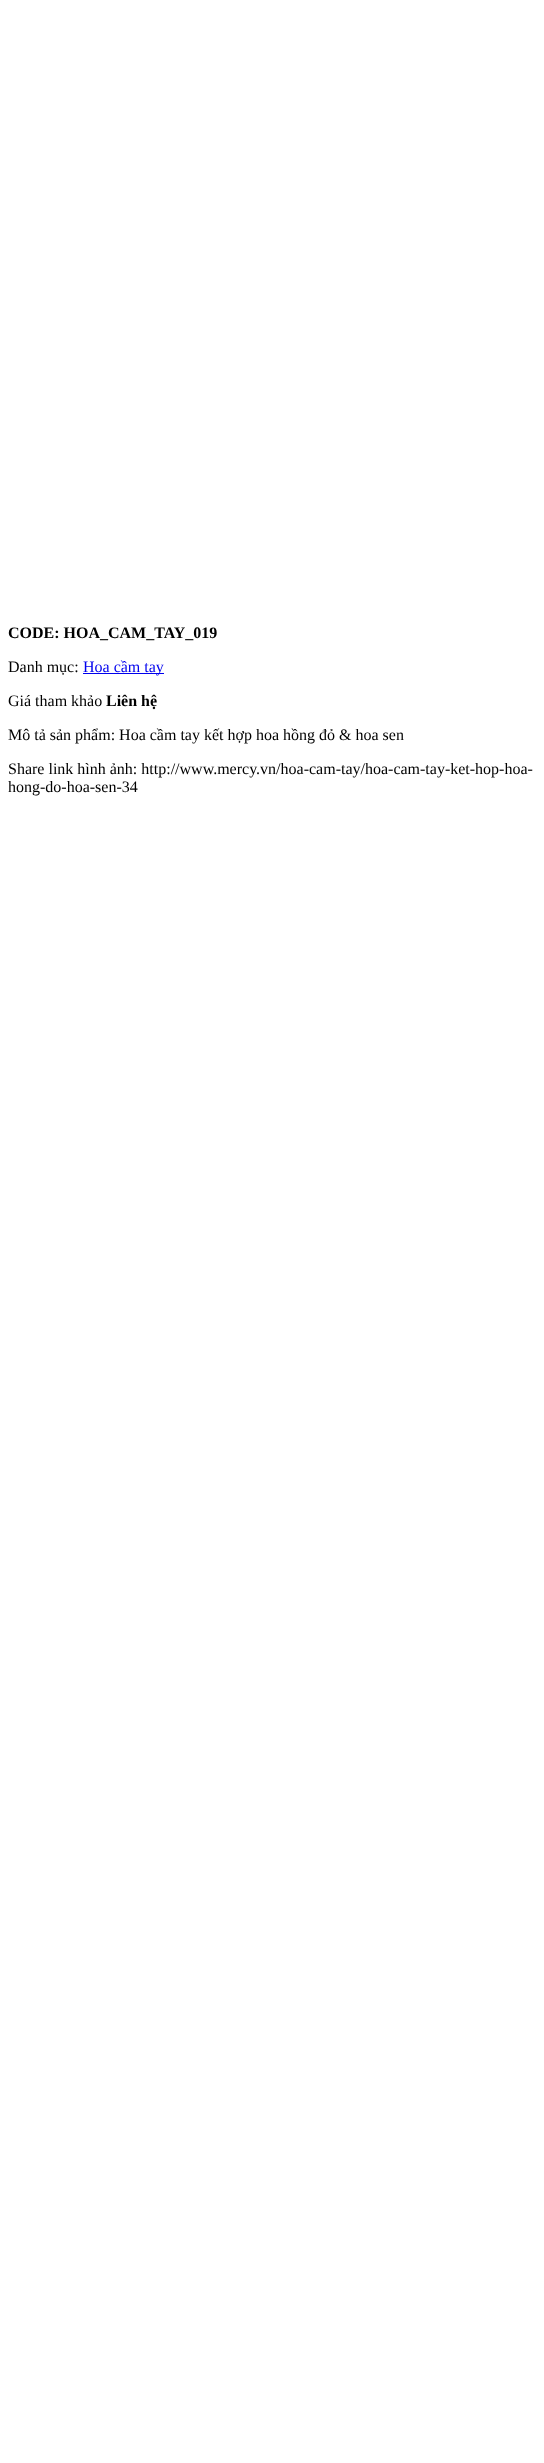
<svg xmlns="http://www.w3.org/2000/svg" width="544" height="2463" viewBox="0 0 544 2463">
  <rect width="100%" height="100%" fill="#fff"/>
  <path d="M83 673h81v1H83z" fill="#00e"/>
  <text x="8" y="638" font-family="Liberation Serif" font-size="16" font-weight="bold" fill="#000">CODE: HOA_CAM_TAY_019</text>
  <text x="8" y="672" font-family="Liberation Serif" font-size="16" fill="#000">Danh mục:</text>
  <text x="83" y="672" font-family="Liberation Serif" font-size="16" fill="#00e">Hoa cầm tay</text>
  <text x="8" y="706" font-family="Liberation Serif" font-size="16" fill="#000">Giá tham khảo</text>
  <text x="106" y="706" font-family="Liberation Serif" font-size="16" font-weight="bold" fill="#000">Liên hệ</text>
  <g font-family="Liberation Serif" font-size="16" fill="#000">
    <text x="8" y="740">Mô tả sản phẩm: Hoa cầm tay kết hợp hoa hồng đỏ &amp; hoa sen</text>
    <text x="8" y="774">Share link hình ảnh: http://www.mercy.vn/hoa-cam-tay/hoa-cam-tay-ket-hop-hoa-</text>
    <text x="8" y="792">hong-do-hoa-sen-34</text>
  </g>
</svg>
